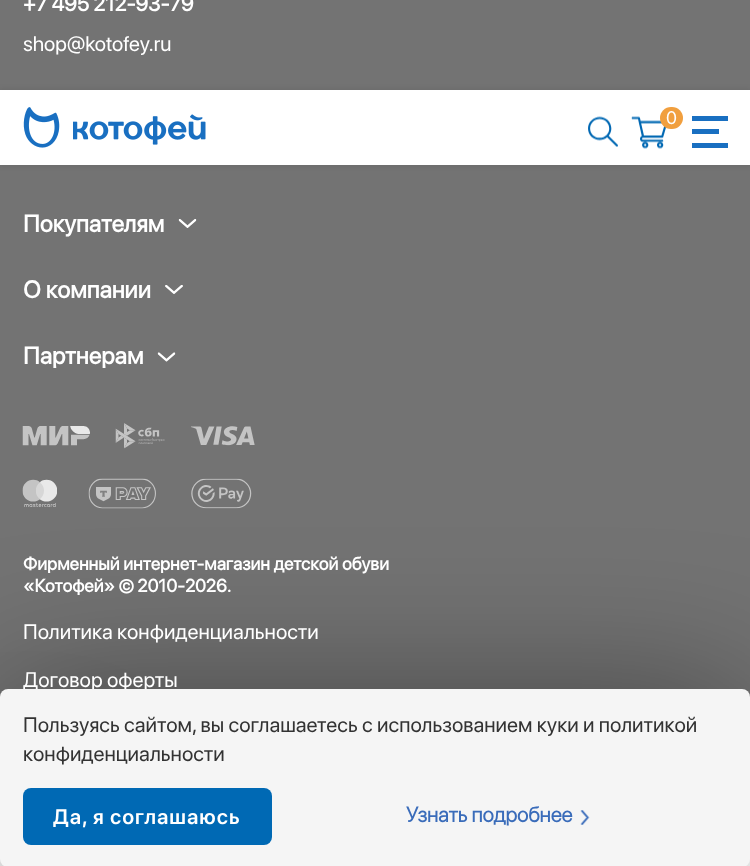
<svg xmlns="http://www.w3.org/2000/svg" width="750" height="866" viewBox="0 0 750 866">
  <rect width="100%" height="100%" fill="#fff"/>
  <path d="M0 0h750v697H0z" fill="#737373"/>
  <image x="178" y="219" width="19" height="9" href="img/1.png"/>
  <image x="165" y="285" width="18" height="9" href="img/2.png"/>
  <image x="157" y="352" width="19" height="10" href="img/3.png"/>
  <image x="22" y="426" width="68" height="20" href="img/4.png"/>
  <image x="115" y="423" width="50" height="26" href="img/5.png"/>
  <image x="191" y="426" width="64" height="20" href="img/6.png"/>
  <image x="22" y="479" width="35" height="28" href="img/7.png"/>
  <image x="88" y="478" width="68" height="31" href="img/8.png"/>
  <image x="191" y="478" width="61" height="31" href="img/9.png"/>
  <path d="M0 90h750v75H0z" fill="#0000001a" filter="blur(3px)"/>
  <path d="M0 90h750v75H0z" fill="#fff"/>
  <image x="23" y="107" width="183" height="41" href="img/10.png"/>
  <image x="588" y="116" width="30" height="31" href="img/11.png"/>
  <image x="631" y="116" width="36" height="33" href="img/12.png"/>
  <rect x="660" y="107" width="23" height="22" rx="11" fill="#f19f3e"/>
  <path d="M692 116h36v5H692z" fill="#196fc1"/>
  <path d="M692 129h27v5H692z" fill="#196fc1"/>
  <path d="M692 143h36v5H692z" fill="#196fc1"/>
  <rect y="798" width="60" height="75" rx="8" fill="#00000066" filter="blur(75px)"/>
  <rect y="695" width="750" height="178" rx="8" fill="#00000066" filter="blur(75px)"/>
  <text x="23" y="11" font-family="SF Pro Display" font-size="21" font-weight="bold" fill="#fff">+7 495 212-93-79</text>
  <text x="23" y="51" font-family="SF Pro Display" font-size="21" fill="#fff">shop@kotofey.ru</text>
  <g font-family="SF Pro Display" font-size="24" font-weight="bold" fill="#fff">
    <text x="23" y="232">Покупателям</text>
    <text x="23" y="298">О компании</text>
    <text x="23" y="364">Партнерам</text>
  </g>
  <g font-family="SF Pro Display" font-size="18" font-weight="bold" fill="#fff">
    <text x="23" y="570">Фирменный интернет-магазин детской обуви</text>
    <text x="23" y="592">«Котофей» © 2010-2026.</text>
  </g>
  <g font-family="SF Pro Display" font-size="21" fill="#fff">
    <text x="23" y="639">Политика конфиденциальности</text>
    <text x="23" y="687">Договор оферты</text>
  </g>
  <text x="666" y="124" font-family="SF Pro Display" font-size="18" fill="#fff">0</text>
  <rect y="689" width="750" height="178" rx="8" fill="#f5f5f5"/>
  <g font-family="SF Pro Display" font-size="21" fill="#333">
    <text x="23" y="732">Пользуясь сайтом, вы соглашаетесь с использованием куки и политикой</text>
    <text x="23" y="761">конфиденциальности</text>
  </g>
  <rect x="23" y="788" width="249" height="57" rx="8" fill="#0069b4"/>
  <text x="53" y="824" font-family="SF Pro Display" font-size="21" font-weight="600" letter-spacing="1" fill="#fff">Да, я соглашаюсь</text>
  <text x="406" y="822" font-family="'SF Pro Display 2'" font-size="21" font-weight="bold" fill="#3a6cba">Узнать подробнее</text>
  <image x="580" y="810" width="10" height="15" href="img/13.png"/>
</svg>
